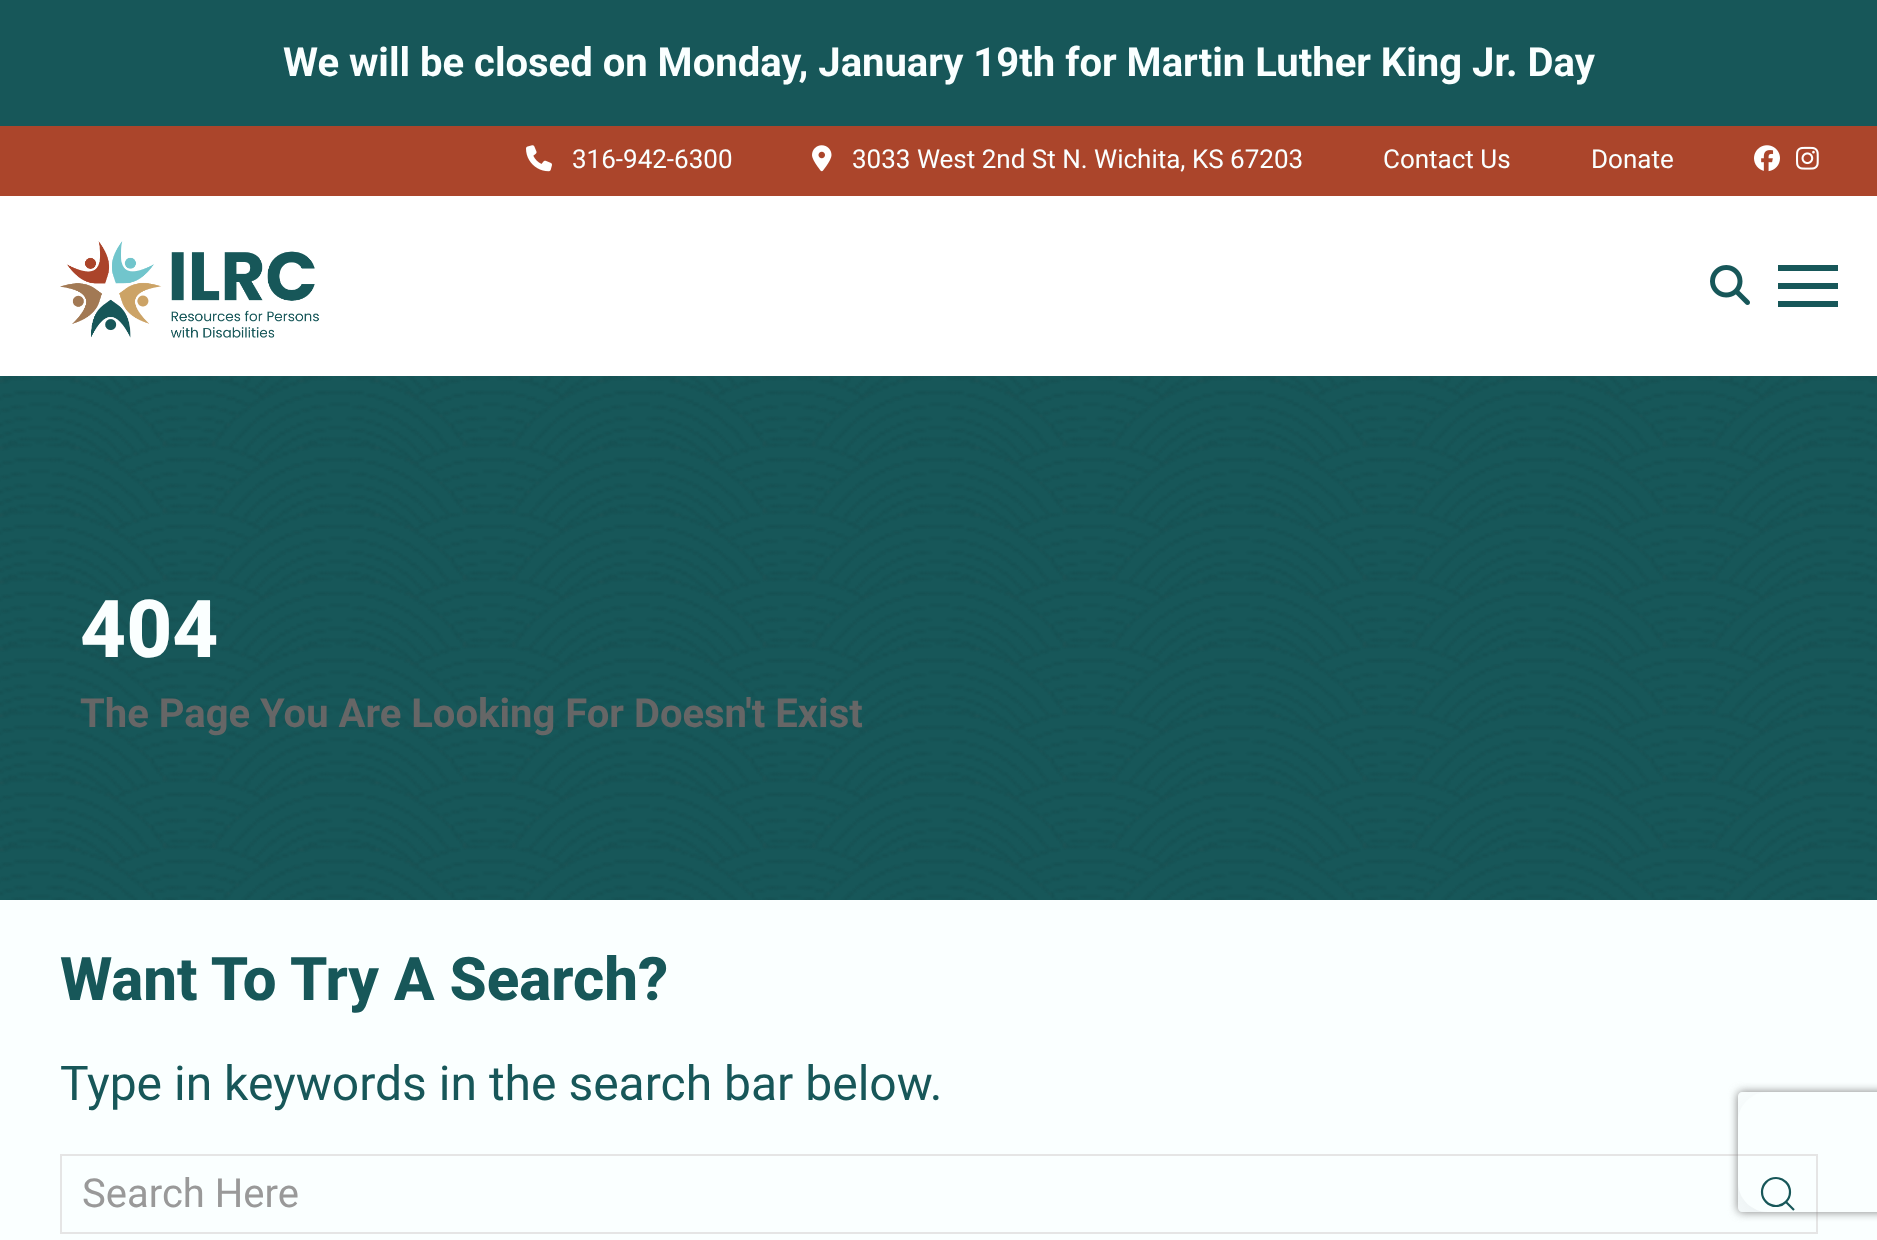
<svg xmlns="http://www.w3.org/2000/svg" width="1877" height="1240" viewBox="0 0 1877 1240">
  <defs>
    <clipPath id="clip1"><path d="M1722 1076H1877V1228H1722ZM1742 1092H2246C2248 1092 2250 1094 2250 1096V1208C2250 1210 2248 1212 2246 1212H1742C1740 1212 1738 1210 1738 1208V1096C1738 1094 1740 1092 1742 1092Z" clip-rule="evenodd"/></clipPath>
    <clipPath id="clip2"><rect x="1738" y="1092" width="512" height="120" rx="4"/></clipPath>
    <clipPath id="clip3"><path d="M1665 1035H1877V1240H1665ZM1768 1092H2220C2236.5 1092 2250 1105.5 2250 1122V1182C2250 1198.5 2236.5 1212 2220 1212H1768C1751.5 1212 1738 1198.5 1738 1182V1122C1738 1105.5 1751.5 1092 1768 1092Z" clip-rule="evenodd"/></clipPath>
  </defs>
  <rect width="100%" height="100%" fill="#faffff"/>
  <path d="M0 196h1877v180H0z" fill="#fff"/>
  <path d="M0 0h1877v126H0z" fill="#175759"/>
  <path d="M0 126h1877v70H0z" fill="#ab452b"/>
  <image x="526" y="145" width="26" height="27" href="img/1.png"/>
  <image x="812" y="145" width="20" height="27" href="img/2.png"/>
  <image x="1754" y="145" width="26" height="27" href="img/3.png"/>
  <image x="1796" y="146" width="23" height="24" href="img/4.png"/>
  <image x="60" y="241" width="259" height="97" href="img/5.png"/>
  <image x="1710" y="265" width="40" height="40" href="img/6.png"/>
  <path d="M1778 265h60v6H1778z" fill="#175759"/>
  <path d="M1778 283h60v6H1778z" fill="#175759"/>
  <path d="M1778 301h60v6H1778z" fill="#175759"/>
  <path d="M0 376h1877v524H0z" fill="#175759"/>
  <image x="0" y="376" width="1877" height="524" href="img/7.png"/>
  <path d="M61 1155h1756v78H61z" fill="none" stroke="#e5e5e5" stroke-width="2"/>
  <circle cx="1776" cy="1192" r="14" fill="none" stroke="#175759" stroke-width="2.2"/>
  <path d="M1786 1202L1794 1210Z" fill="none" stroke="#175759" stroke-width="2.2"/>
  <g clip-path="url(#clip1)">
    <rect x="1738" y="1092" width="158" height="120" rx="4" fill="#808080" filter="blur(5px)"/>
  </g>
  <g clip-path="url(#clip2)">
    <g clip-path="url(#clip3)">
      <rect x="1738" y="1108" width="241" height="120" rx="30" fill="#959da533" filter="blur(24px)"/>
    </g>
  </g>
  <text x="283" y="76" font-family="Roboto" font-size="40" font-weight="bold" fill="#faffff">We will be closed on Monday, January 19th for Martin Luther King Jr. Day</text>
  <g font-family="Roboto" font-size="26" fill="#faffff">
    <text x="572" y="168">316-942-6300</text>
    <text x="852" y="168">3033 West 2nd St N. Wichita, KS 67203</text>
    <text x="1383" y="168">Contact Us</text>
    <text x="1591" y="168">Donate</text>
  </g>
  <text x="80" y="657" font-family="Roboto" font-size="80" font-weight="800" fill="#faffff">404</text>
  <text x="80" y="727" font-family="Roboto" font-size="40" font-weight="bold" fill="#666">The Page You Are Looking For Doesn't Exist</text>
  <text x="60" y="1000" font-family="Roboto" font-size="60" font-weight="800" fill="#175759">Want To Try A Search?</text>
  <text x="60" y="1100" font-family="Roboto" font-size="48" fill="#175759">Type in keywords in the search bar below.</text>
  <text x="82" y="1207" font-family="Roboto" font-size="40" fill="#999">Search Here</text>
</svg>
